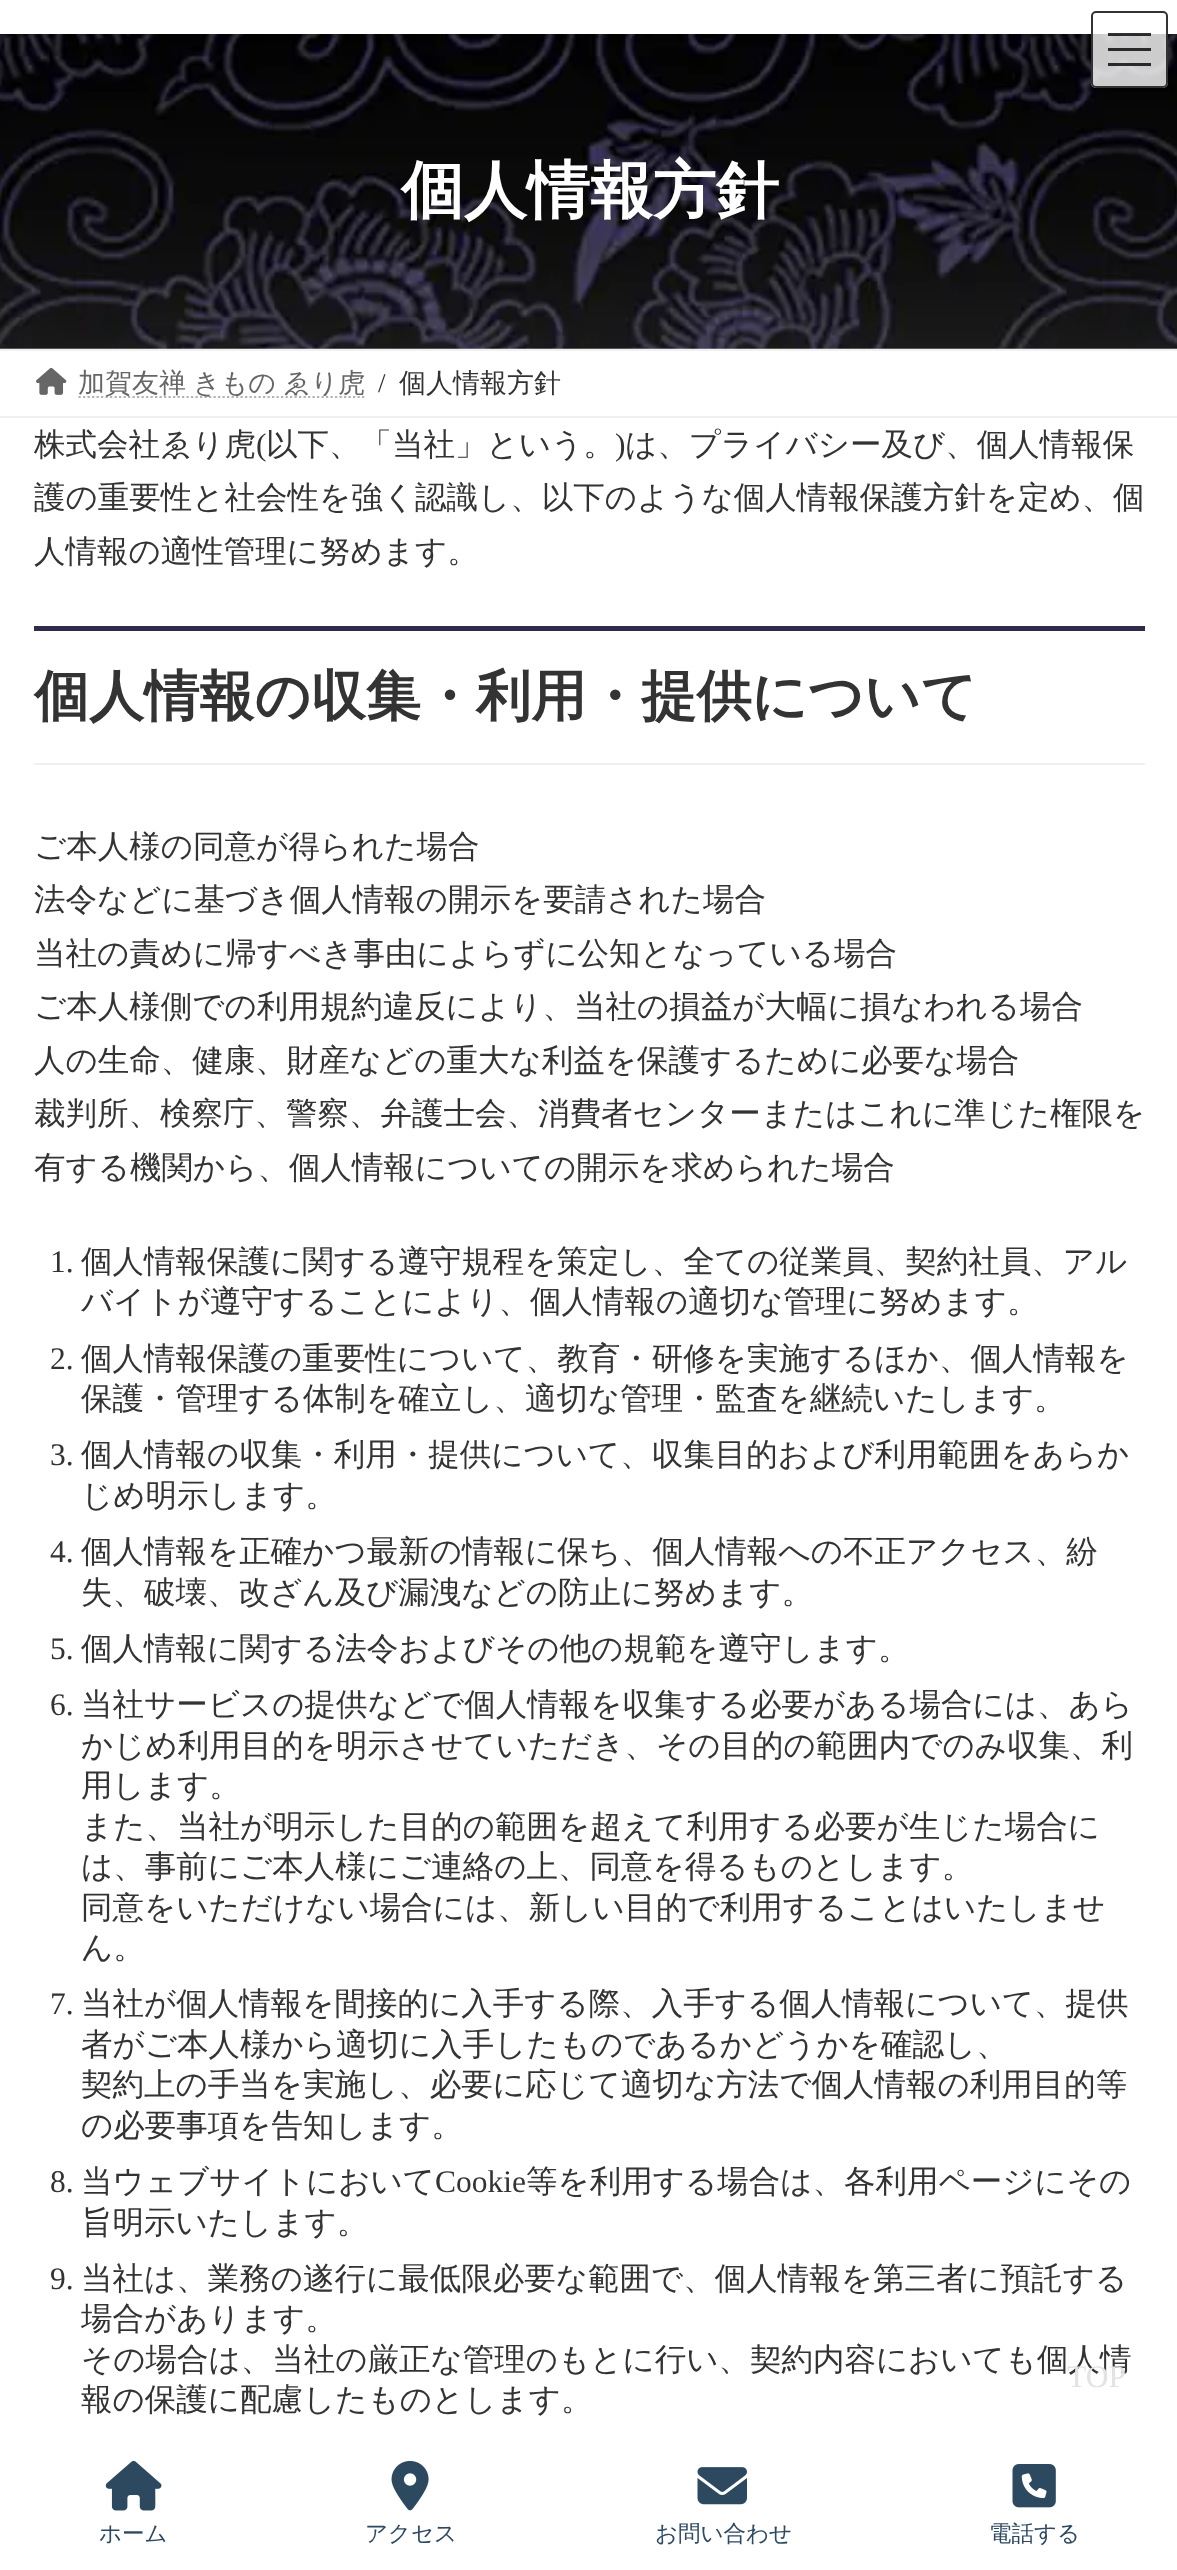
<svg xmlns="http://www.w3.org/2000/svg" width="1177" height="2570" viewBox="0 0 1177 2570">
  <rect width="100%" height="100%" fill="#fff"/>
  <image x="0" y="34" width="1177" height="315" href="img/1.png"/>
  <path d="M0 2h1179v34H0z" fill="#0000000d" filter="blur(3.5px)"/>
  <path d="M0 0h1177v34H0z" fill="#fff"/>
  <rect x="1091" y="11" width="77" height="77" rx="5" fill="#ffffffcc"/>
  <path d="M1108 33h43v3H1108z" fill="#000000cc"/>
  <path d="M1108 48h43v3H1108z" fill="#292929"/>
  <path d="M1108 63h43v3H1108z" fill="#000000cc"/>
  <rect x="1092" y="12" width="75" height="75" rx="4" fill="none" stroke="#333" stroke-width="2"/>
  <path d="M0 349h1177v2H0z" fill="#f0f0f0"/>
  <path d="M0 416h1177v2H0z" fill="#f0f0f0"/>
  <image x="36" y="367" width="31" height="28" href="img/2.png"/>
  <path d="M78.5 397H365" fill="none" stroke="#b3b3b3" stroke-width="2.2" stroke-dasharray="2.25 2.25"/>
  <path d="M34 626h1111v5H34z" fill="#2f2b4a"/>
  <path d="M34 763h1111v2H34z" fill="#f0f0f0"/>
  <image x="105" y="2460" width="57" height="51" href="img/3.png"/>
  <image x="391" y="2460" width="38" height="51" href="img/4.png"/>
  <image x="697" y="2467" width="50" height="38" href="img/5.png"/>
  <image x="1012" y="2464" width="44" height="44" href="img/6.png"/>
  <text x="401" y="212" font-family="WenQuanYi Zen Hei" font-size="63" font-weight="bold" fill="#fff">個人情報方針</text>
  <text x="78" y="392" word-spacing="-1" font-family="WenQuanYi Zen Hei" font-size="27" font-weight="500" fill="#666">加賀友禅 きもの ゑり虎</text>
  <text x="378" y="392" font-family="Liberation Serif" font-size="27" fill="#333">/</text>
  <text x="399" y="392" font-family="WenQuanYi Zen Hei" font-size="27" font-weight="500" fill="#333">個人情報方針</text>
  <text x="34" y="455" font-family="WenQuanYi Zen Hei" font-size="31.5" font-weight="500" fill="#333">株式会社ゑり虎</text>
  <text x="256" y="455" font-family="Liberation Serif" font-size="31.5" fill="#333">(</text>
  <text x="266" y="455" font-family="WenQuanYi Zen Hei" font-size="31.5" font-weight="500" fill="#333">以下、「当社」という。</text>
  <text x="615" y="455" font-family="Liberation Serif" font-size="31.5" fill="#333">)</text>
  <g font-family="WenQuanYi Zen Hei" font-size="31.5" font-weight="500" fill="#333">
    <text x="625" y="455">は、プライバシー及び、個人情報保</text>
    <text x="34" y="508">護の重要性と社会性を強く認識し、以下のような個人情報保護方針を定め、個</text>
    <text x="34" y="562">人情報の適性管理に努めます。</text>
  </g>
  <text x="34" y="715" font-family="WenQuanYi Zen Hei" font-size="55.1" font-weight="bold" fill="#333">個人情報の収集・利用・提供について</text>
  <g font-family="WenQuanYi Zen Hei" font-size="31.5" font-weight="500" fill="#333">
    <text x="34" y="857">ご本人様の同意が得られた場合</text>
    <text x="34" y="910">法令などに基づき個人情報の開示を要請された場合</text>
    <text x="34" y="964">当社の責めに帰すべき事由によらずに公知となっている場合</text>
    <text x="34" y="1017">ご本人様側での利用規約違反により、当社の損益が大幅に損なわれる場合</text>
    <text x="34" y="1071">人の生命、健康、財産などの重大な利益を保護するために必要な場合</text>
    <text x="34" y="1124">裁判所、検察庁、警察、弁護士会、消費者センターまたはこれに準じた権限を</text>
    <text x="34" y="1178">有する機関から、個人情報についての開示を求められた場合</text>
  </g>
  <text x="50" y="1272" font-family="Liberation Serif" font-size="31.5" fill="#333">1.</text>
  <g font-family="WenQuanYi Zen Hei" font-size="31.5" font-weight="500" fill="#333">
    <text x="81" y="1272">個人情報保護に関する遵守規程を策定し、全ての従業員、契約社員、アル</text>
    <text x="81" y="1312">バイトが遵守することにより、個人情報の適切な管理に努めます。</text>
  </g>
  <text x="50" y="1369" font-family="Liberation Serif" font-size="31.5" fill="#333">2.</text>
  <g font-family="WenQuanYi Zen Hei" font-size="31.5" font-weight="500" fill="#333">
    <text x="81" y="1369">個人情報保護の重要性について、教育・研修を実施するほか、個人情報を</text>
    <text x="81" y="1409">保護・管理する体制を確立し、適切な管理・監査を継続いたします。</text>
  </g>
  <text x="50" y="1465" font-family="Liberation Serif" font-size="31.5" fill="#333">3.</text>
  <g font-family="WenQuanYi Zen Hei" font-size="31.5" font-weight="500" fill="#333">
    <text x="81" y="1465">個人情報の収集・利用・提供について、収集目的および利用範囲をあらか</text>
    <text x="81" y="1506">じめ明示します。</text>
  </g>
  <text x="50" y="1562" font-family="Liberation Serif" font-size="31.5" fill="#333">4.</text>
  <g font-family="WenQuanYi Zen Hei" font-size="31.5" font-weight="500" fill="#333">
    <text x="81" y="1562">個人情報を正確かつ最新の情報に保ち、個人情報への不正アクセス、紛</text>
    <text x="81" y="1603">失、破壊、改ざん及び漏洩などの防止に努めます。</text>
  </g>
  <text x="50" y="1659" font-family="Liberation Serif" font-size="31.5" fill="#333">5.</text>
  <text x="81" y="1659" font-family="WenQuanYi Zen Hei" font-size="31.5" font-weight="500" fill="#333">個人情報に関する法令およびその他の規範を遵守します。</text>
  <text x="50" y="1715" font-family="Liberation Serif" font-size="31.5" fill="#333">6.</text>
  <g font-family="WenQuanYi Zen Hei" font-size="31.5" font-weight="500" fill="#333">
    <text x="81" y="1715">当社サービスの提供などで個人情報を収集する必要がある場合には、あら</text>
    <text x="81" y="1756">かじめ利用目的を明示させていただき、その目的の範囲内でのみ収集、利</text>
    <text x="81" y="1796">用します。</text>
    <text x="81" y="1837">また、当社が明示した目的の範囲を超えて利用する必要が生じた場合に</text>
    <text x="81" y="1877">は、事前にご本人様にご連絡の上、同意を得るものとします。</text>
    <text x="81" y="1918">同意をいただけない場合には、新しい目的で利用することはいたしませ</text>
    <text x="81" y="1958">ん。</text>
  </g>
  <text x="50" y="2014" font-family="Liberation Serif" font-size="31.5" fill="#333">7.</text>
  <g font-family="WenQuanYi Zen Hei" font-size="31.5" font-weight="500" fill="#333">
    <text x="81" y="2014">当社が個人情報を間接的に入手する際、入手する個人情報について、提供</text>
    <text x="81" y="2055">者がご本人様から適切に入手したものであるかどうかを確認し、</text>
    <text x="81" y="2095">契約上の手当を実施し、必要に応じて適切な方法で個人情報の利用目的等</text>
    <text x="81" y="2136">の必要事項を告知します。</text>
  </g>
  <text x="50" y="2192" font-family="Liberation Serif" font-size="31.5" fill="#333">8.</text>
  <text x="81" y="2192" font-family="WenQuanYi Zen Hei" font-size="31.5" font-weight="500" fill="#333">当ウェブサイトにおいて</text>
  <text x="435" y="2192" font-family="Liberation Serif" font-size="31.5" fill="#333">Cookie</text>
  <g font-family="WenQuanYi Zen Hei" font-size="31.5" font-weight="500" fill="#333">
    <text x="526" y="2192">等を利用する場合は、各利用ページにその</text>
    <text x="81" y="2233">旨明示いたします。</text>
  </g>
  <text x="50" y="2289" font-family="Liberation Serif" font-size="31.5" fill="#333">9.</text>
  <g font-family="WenQuanYi Zen Hei" font-size="31.5" font-weight="500" fill="#333">
    <text x="81" y="2289">当社は、業務の遂行に最低限必要な範囲で、個人情報を第三者に預託する</text>
    <text x="81" y="2329">場合があります。</text>
    <text x="81" y="2370">その場合は、当社の厳正な管理のもとに行い、契約内容においても個人情</text>
    <text x="81" y="2410">報の保護に配慮したものとします。</text>
  </g>
  <text x="1067" y="2387" font-family="Liberation Serif" font-size="31.5" fill="#e3e3e3">TOP</text>
  <g font-family="WenQuanYi Zen Hei" font-size="22.5" font-weight="500" fill="#2d4961">
    <text x="99" y="2541">ホーム</text>
    <text x="365" y="2541">アクセス</text>
    <text x="655" y="2541">お問い合わせ</text>
    <text x="989" y="2541">電話する</text>
  </g>
</svg>
